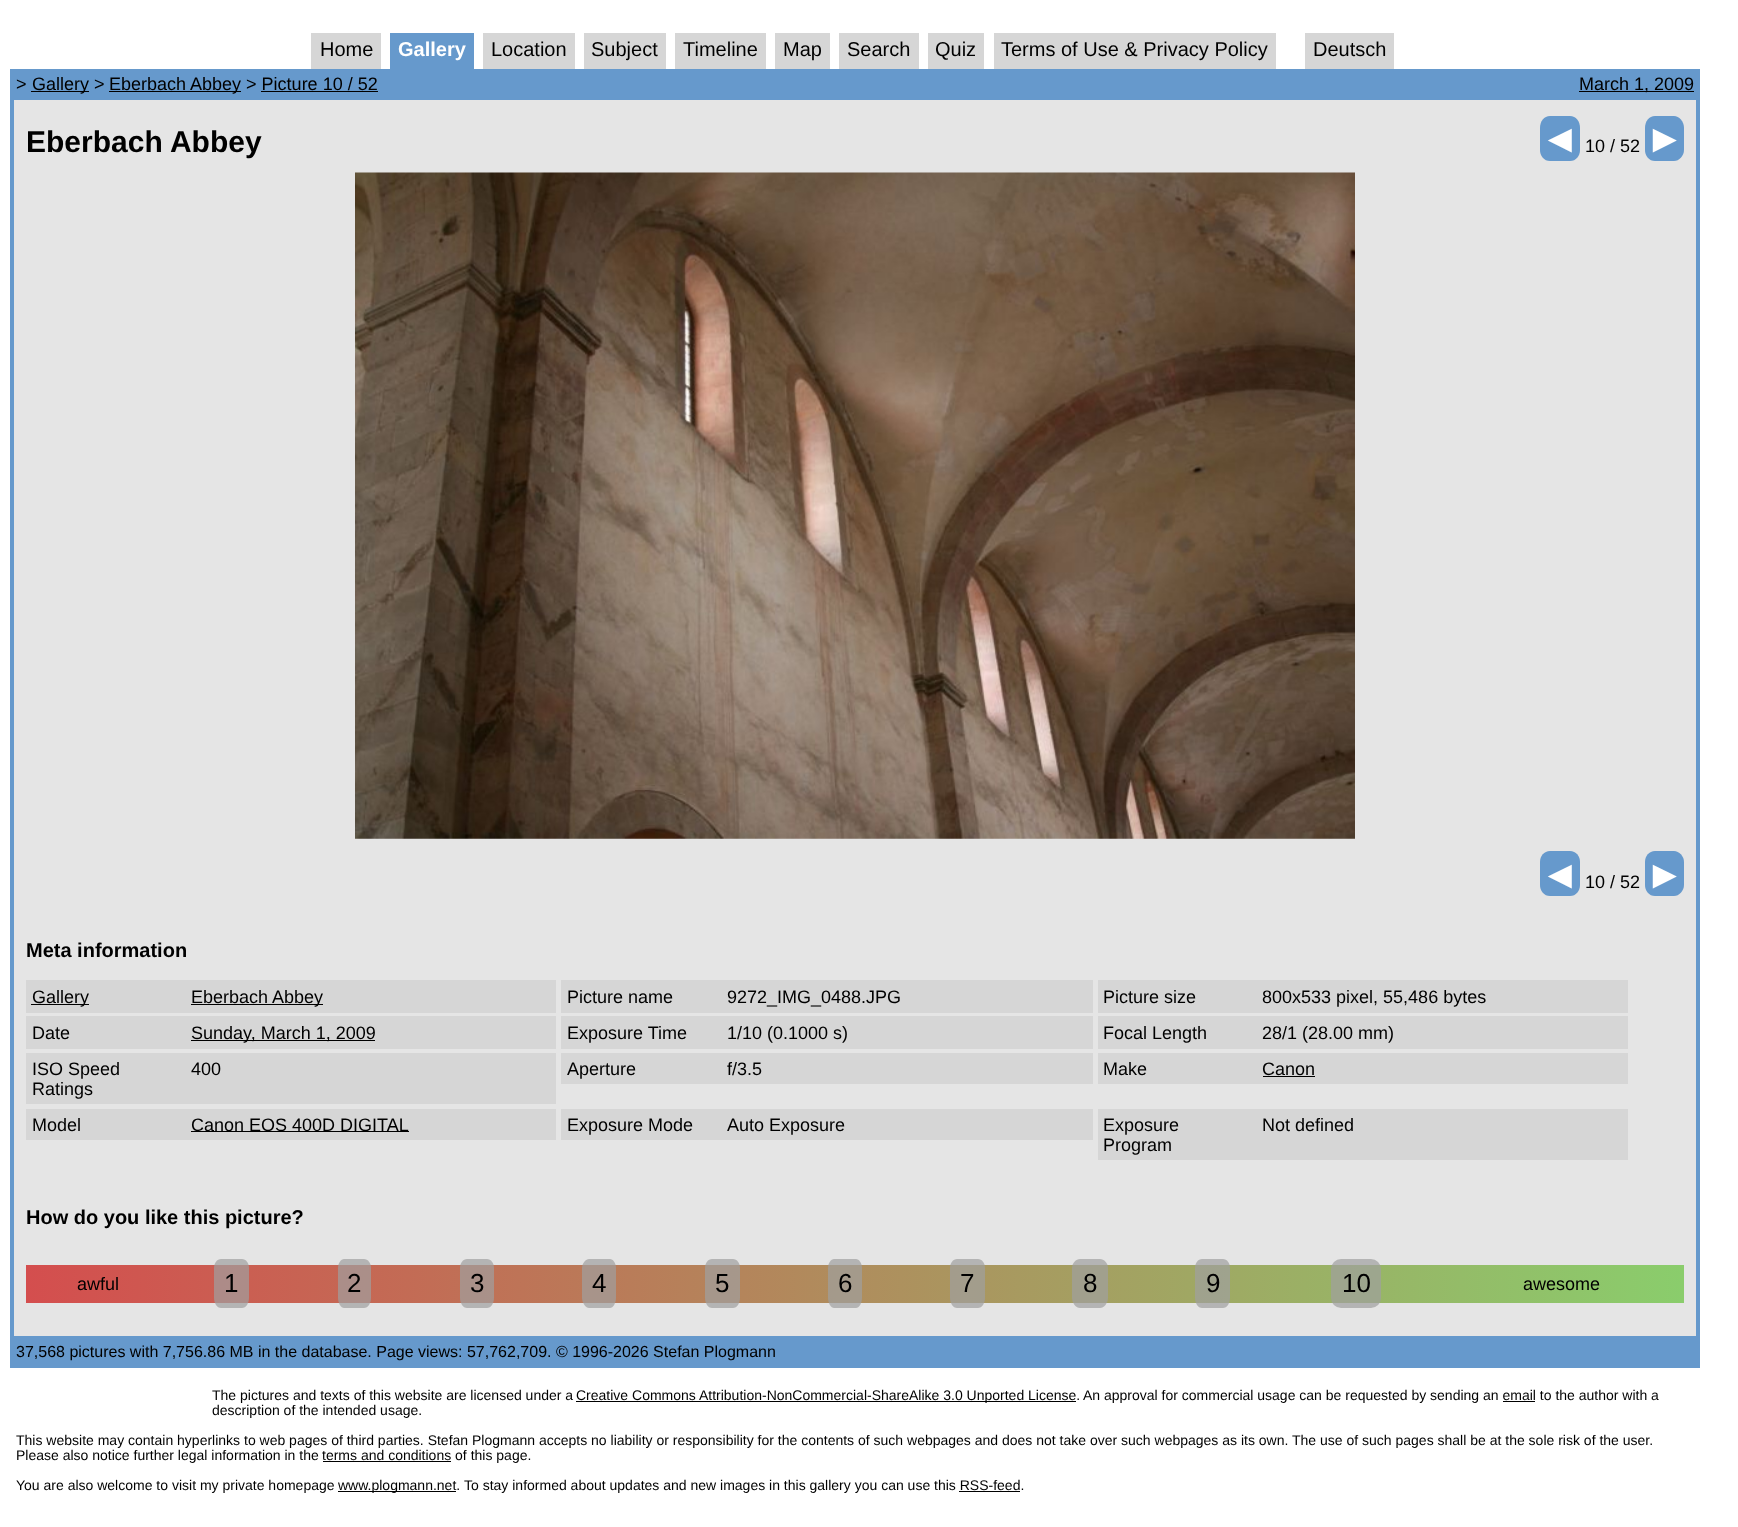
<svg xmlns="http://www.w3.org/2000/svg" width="1738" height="1527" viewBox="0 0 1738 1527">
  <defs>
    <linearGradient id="g1" gradientUnits="userSpaceOnUse" x1="1684" y1="1284" x2="26" y2="1284"><stop offset="0" stop-color="#8acd6c"/><stop offset="1" stop-color="#d44e4e"/></linearGradient>
  </defs>
  <rect width="100%" height="100%" fill="#fff"/>
  <path d="M311 33h70v36H311z" fill="#d6d6d6"/>
  <path d="M390 33h84v36H390z" fill="#69c"/>
  <path d="M483 33h92v36H483z" fill="#d6d6d6"/>
  <path d="M584 33h82v36H584z" fill="#d6d6d6"/>
  <path d="M675 33h91v36H675z" fill="#d6d6d6"/>
  <path d="M775 33h55v36H775z" fill="#d6d6d6"/>
  <path d="M839 33h80v36H839z" fill="#d6d6d6"/>
  <path d="M928 33h56v36H928z" fill="#d6d6d6"/>
  <path d="M994 33h282v36H994z" fill="#d6d6d6"/>
  <path d="M1305 33h89v36H1305z" fill="#d6d6d6"/>
  <path d="M10 69h1690v31H10z" fill="#69c"/>
  <path d="M31 91h58v1H31z" fill="#000"/>
  <path d="M109 91h132v1H109z" fill="#000"/>
  <path d="M261 91h117v1H261z" fill="#000"/>
  <path d="M1579 91h115v1H1579z" fill="#000"/>
  <path d="M14 100h1682v1236H14z" fill="#e5e5e5"/>
  <path d="M1696 100h4v1236H1696z" fill="#69c"/>
  <path d="M10 100h4v1236H10z" fill="#69c"/>
  <path d="M1550 116H1570C1576 116 1580 121 1580 128V150C1580 156 1576 161 1570 161H1550C1544 161 1540 156 1540 150V128C1540 121 1544 116 1550 116Z" fill="#69c"/>
  <path d="M1655 116H1674C1679 116 1684 121 1684 128V150C1684 156 1679 161 1674 161H1655C1649 161 1645 156 1645 150V128C1645 121 1649 116 1655 116Z" fill="#69c"/>
  <image x="355" y="172" width="1000" height="667" href="img/1.png"/>
  <path d="M1550 851H1570C1576 851 1580 856 1580 862V885C1580 891 1576 896 1570 896H1550C1544 896 1540 891 1540 885V862C1540 856 1544 851 1550 851Z" fill="#69c"/>
  <path d="M1655 851H1674C1679 851 1684 856 1684 862V885C1684 891 1679 896 1674 896H1655C1649 896 1645 891 1645 885V862C1645 856 1649 851 1655 851Z" fill="#69c"/>
  <path d="M26 980h530v33H26z" fill="#d6d6d6"/>
  <path d="M31 1004h58v1H31z" fill="#000"/>
  <path d="M191 1004h132v1H191z" fill="#000"/>
  <path d="M561 980h532v33H561z" fill="#d6d6d6"/>
  <path d="M1098 980h530v33H1098z" fill="#d6d6d6"/>
  <path d="M26 1016h530v33H26z" fill="#d6d6d6"/>
  <path d="M191 1040h184v1H191z" fill="#000"/>
  <path d="M561 1016h532v33H561z" fill="#d6d6d6"/>
  <path d="M1098 1016h530v33H1098z" fill="#d6d6d6"/>
  <path d="M26 1053h530v51H26z" fill="#d6d6d6"/>
  <path d="M561 1053h532v31H561z" fill="#d6d6d6"/>
  <path d="M1098 1053h530v31H1098z" fill="#d6d6d6"/>
  <path d="M1263 1076h52v1H1263z" fill="#000"/>
  <path d="M26 1109h530v31H26z" fill="#d6d6d6"/>
  <path d="M191 1131h218v1H191z" fill="#000"/>
  <path d="M561 1109h532v31H561z" fill="#d6d6d6"/>
  <path d="M1098 1109h530v51H1098z" fill="#d6d6d6"/>
  <path d="M26 1265h1658v38H26z" fill="url(#g1)"/>
  <path d="M221 1259H242C246 1259 249 1263 249 1268V1298C249 1303 246 1308 242 1308H221C217 1308 214 1303 214 1298V1268C214 1263 217 1259 221 1259Z" fill="#a0a0a0b3"/>
  <path d="M344 1259H364C368 1259 371 1263 371 1268V1298C371 1303 368 1308 364 1308H344C341 1308 338 1303 338 1298V1268C338 1263 341 1259 344 1259Z" fill="#a0a0a0b3"/>
  <path d="M467 1259H487C491 1259 494 1263 494 1268V1298C494 1303 491 1308 487 1308H467C463 1308 460 1303 460 1298V1268C460 1263 463 1259 467 1259Z" fill="#a0a0a0b3"/>
  <path d="M589 1259H610C613 1259 616 1263 616 1268V1298C616 1303 613 1308 610 1308H589C586 1308 582 1303 582 1298V1268C582 1263 586 1259 589 1259Z" fill="#a0a0a0b3"/>
  <path d="M712 1259H733C737 1259 740 1263 740 1268V1298C740 1303 737 1308 733 1308H712C708 1308 705 1303 705 1298V1268C705 1263 708 1259 712 1259Z" fill="#a0a0a0b3"/>
  <path d="M834 1259H856C859 1259 862 1263 862 1268V1298C862 1303 859 1308 856 1308H834C831 1308 828 1303 828 1298V1268C828 1263 831 1259 834 1259Z" fill="#a0a0a0b3"/>
  <path d="M957 1259H978C982 1259 985 1263 985 1268V1298C985 1303 982 1308 978 1308H957C953 1308 950 1303 950 1298V1268C950 1263 953 1259 957 1259Z" fill="#a0a0a0b3"/>
  <path d="M1080 1259H1100C1104 1259 1108 1263 1108 1268V1298C1108 1303 1104 1308 1100 1308H1080C1076 1308 1072 1303 1072 1298V1268C1072 1263 1076 1259 1080 1259Z" fill="#a0a0a0b3"/>
  <path d="M1202 1259H1223C1227 1259 1230 1263 1230 1268V1298C1230 1303 1227 1308 1223 1308H1202C1198 1308 1195 1303 1195 1298V1268C1195 1263 1198 1259 1202 1259Z" fill="#a0a0a0b3"/>
  <rect x="1331" y="1259" width="50" height="49" rx="10" fill="#a0a0a0b3"/>
  <path d="M10 1336h1690v32H10z" fill="#69c"/>
  <path d="M576 1401h500v1H576z" fill="#000"/>
  <path d="M1503 1401h32v1H1503z" fill="#000"/>
  <path d="M323 1461h128v1H323z" fill="#000"/>
  <path d="M338 1491h118v1H338z" fill="#000"/>
  <path d="M959 1491h61v1H959z" fill="#000"/>
  <text x="320" y="56" font-family="Liberation Sans" font-size="20" fill="#000">Home</text>
  <text x="398" y="56" font-family="Liberation Sans" font-size="20" font-weight="bold" fill="#fff">Gallery</text>
  <g font-family="Liberation Sans" font-size="20" fill="#000">
    <text x="491" y="56">Location</text>
    <text x="591" y="56">Subject</text>
    <text x="683" y="56">Timeline</text>
    <text x="783" y="56">Map</text>
    <text x="847" y="56">Search</text>
    <text x="935" y="56">Quiz</text>
    <text x="1001" y="56">Terms of Use &amp; Privacy Policy</text>
    <text x="1313" y="56">Deutsch</text>
  </g>
  <g font-family="Liberation Sans" font-size="18" fill="#000">
    <text x="16" y="90">&gt;</text>
    <text x="32" y="90">Gallery &gt;</text>
    <text x="109" y="90">Eberbach Abbey &gt; Picture 10 / 52</text>
    <text x="1579" y="90">March 1, 2009</text>
  </g>
  <text x="26" y="152" font-family="Liberation Sans" font-size="30" font-weight="bold" fill="#000">Eberbach Abbey</text>
  <text x="1540" y="152" font-family="Liberation Sans" font-size="40" fill="#fff">◄</text>
  <text x="1585" y="152" font-family="Liberation Sans" font-size="18" fill="#000">10 / 52</text>
  <g font-family="Liberation Sans" font-size="40" fill="#fff">
    <text x="1645" y="152">►</text>
    <text x="1540" y="888">◄</text>
  </g>
  <text x="1585" y="888" font-family="Liberation Sans" font-size="18" fill="#000">10 / 52</text>
  <text x="1645" y="888" font-family="Liberation Sans" font-size="40" fill="#fff">►</text>
  <text x="26" y="957" font-family="Liberation Sans" font-size="20" font-weight="bold" fill="#000">Meta information</text>
  <g font-family="Liberation Sans" font-size="18" fill="#000">
    <text x="32" y="1003">Gallery</text>
    <text x="191" y="1003">Eberbach Abbey</text>
    <text x="567" y="1003">Picture name</text>
    <text x="727" y="1003">9272_IMG_0488.JPG</text>
    <text x="1103" y="1003">Picture size</text>
    <text x="1262" y="1003">800x533 pixel, 55,486 bytes</text>
    <text x="32" y="1039">Date</text>
    <text x="191" y="1039">Sunday, March 1, 2009</text>
    <text x="567" y="1039">Exposure Time</text>
    <text x="727" y="1039">1/10 (0.1000 s)</text>
    <text x="1103" y="1039">Focal Length</text>
    <text x="1262" y="1039">28/1 (28.00 mm)</text>
    <text x="32" y="1075">ISO Speed</text>
    <text x="32" y="1095">Ratings</text>
    <text x="191" y="1075">400</text>
    <text x="567" y="1075">Aperture</text>
    <text x="727" y="1075">f/3.5</text>
    <text x="1103" y="1075">Make</text>
    <text x="1262" y="1075">Canon</text>
    <text x="32" y="1131">Model</text>
    <text x="191" y="1131">Canon EOS 400D DIGITAL</text>
    <text x="567" y="1131">Exposure Mode</text>
    <text x="727" y="1131">Auto Exposure</text>
    <text x="1103" y="1131">Exposure</text>
    <text x="1103" y="1151">Program</text>
    <text x="1262" y="1131">Not defined</text>
  </g>
  <text x="26" y="1224" font-family="Liberation Sans" font-size="20" font-weight="bold" fill="#000">How do you like this picture?</text>
  <text x="77" y="1290" font-family="Liberation Sans" font-size="18" fill="#000">awful</text>
  <g font-family="Liberation Sans" font-size="26" fill="#000">
    <text x="224" y="1292">1</text>
    <text x="347" y="1292">2</text>
    <text x="470" y="1292">3</text>
    <text x="592" y="1292">4</text>
    <text x="715" y="1292">5</text>
    <text x="838" y="1292">6</text>
    <text x="960" y="1292">7</text>
    <text x="1083" y="1292">8</text>
    <text x="1206" y="1292">9</text>
    <text x="1342" y="1292">10</text>
  </g>
  <text x="1523" y="1290" font-family="Liberation Sans" font-size="18" fill="#000">awesome</text>
  <text x="16" y="1357" font-family="Liberation Sans" font-size="16" fill="#000">37,568 pictures with 7,756.86 MB in the database. Page views: 57,762,709. © 1996-2026 Stefan Plogmann</text>
  <g font-family="Liberation Sans" font-size="14" fill="#000">
    <text x="212" y="1400">The pictures and texts of this website are licensed under a</text>
    <text x="576" y="1400">Creative Commons Attribution-NonCommercial-ShareAlike 3.0 Unported License.</text>
    <text x="1083" y="1400">An approval for commercial usage can be requested by sending an email to the author with a</text>
    <text x="212" y="1415">description of the intended usage.</text>
    <text x="16" y="1445">This website may contain hyperlinks to web pages of third parties. Stefan Plogmann accepts no liability or responsibility for the contents of such webpages and does not take over such webpages as its own. The use of such pages shall be at the sole risk of the user.</text>
    <text x="16" y="1460">Please also notice further legal information in the</text>
    <text x="322" y="1460">terms and conditions of this page.</text>
    <text x="16" y="1490">You are also welcome to visit my private homepage</text>
    <text x="338" y="1490">www.plogmann.net.</text>
    <text x="464" y="1490">To stay informed about updates and new images in this gallery you can use this RSS-feed.</text>
  </g>
</svg>
